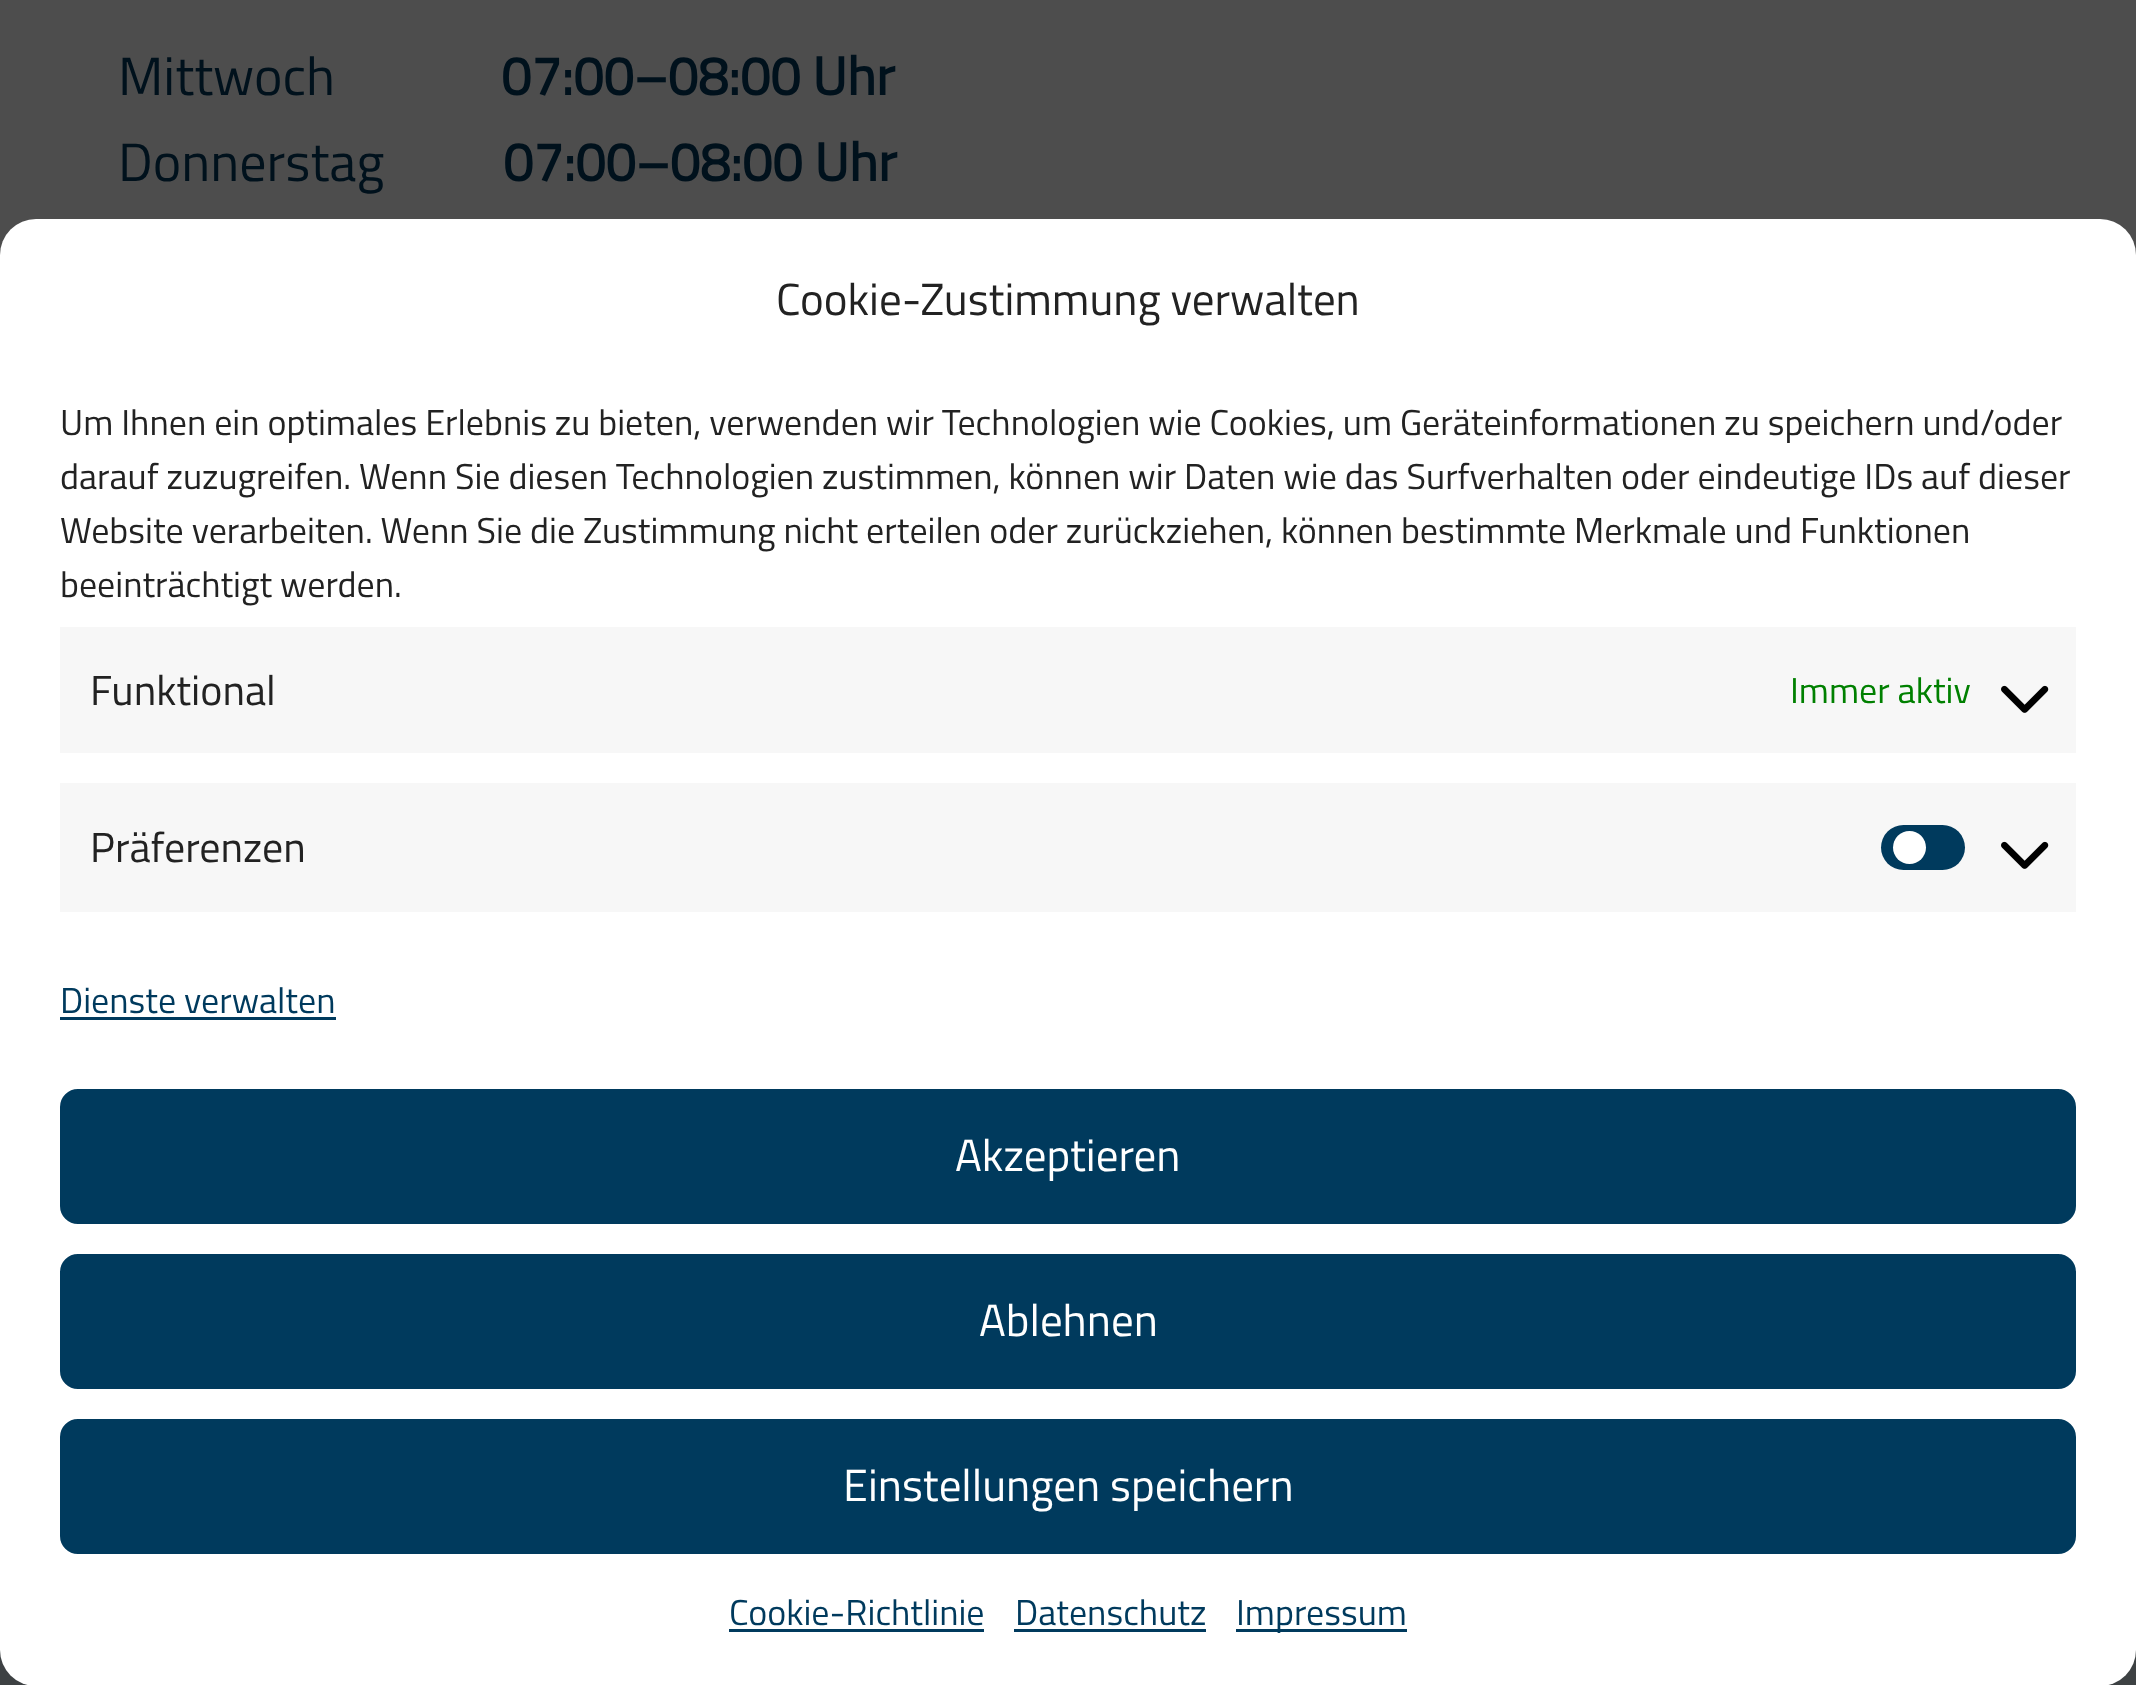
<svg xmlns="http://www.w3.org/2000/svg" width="2136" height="1685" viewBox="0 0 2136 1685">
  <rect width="100%" height="100%" fill="#4d4d4d"/>
  <path d="M0 1650h2136v35H0z" fill="#3d4143"/>
  <rect y="219" width="2136" height="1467" rx="36" fill="#fff"/>
  <path d="M60 627h2016v126H60z" fill="#f7f7f7"/>
  <image x="2001" y="685" width="48" height="28" href="img/1.png"/>
  <path d="M60 783h2016v129H60z" fill="#f7f7f7"/>
  <rect x="1881" y="825" width="84" height="45" rx="22.5" fill="#003a5d"/>
  <circle cx="1909.5" cy="847.5" r="16.5" fill="#fff"/>
  <image x="2001" y="841" width="48" height="28" href="img/1.png"/>
  <path d="M60 1017h276v3H60z" fill="#003a5d"/>
  <rect x="61.5" y="1090.5" width="2013" height="132" rx="16.5" fill="#003a5d" stroke="#003a5d" stroke-width="3"/>
  <rect x="61.5" y="1255.5" width="2013" height="132" rx="16.5" fill="#003a5d" stroke="#003a5d" stroke-width="3"/>
  <rect x="61.5" y="1420.5" width="2013" height="132" rx="16.5" fill="#003a5d" stroke="#003a5d" stroke-width="3"/>
  <path d="M729 1629h255v3H729z" fill="#003a5d"/>
  <path d="M1014 1629h192v3H1014z" fill="#003a5d"/>
  <path d="M1236 1629h171v3H1236z" fill="#003a5d"/>
  <text x="118" y="95" font-family="Titillium Web" font-size="54" fill="#00111c">Mittwoch</text>
  <text x="501" y="95" font-family="Titillium Web" font-size="54" font-weight="bold" fill="#00111c">07:00–08:00 Uhr</text>
  <text x="118" y="181" font-family="Titillium Web" font-size="54" fill="#00111c">Donnerstag</text>
  <text x="503" y="181" font-family="Titillium Web" font-size="54" font-weight="bold" fill="#00111c">07:00–08:00 Uhr</text>
  <text x="776" y="315" font-family="Titillium Web" font-size="45" fill="#222">Cookie-Zustimmung verwalten</text>
  <g font-family="Titillium Web" font-size="36" fill="#222">
    <text x="60" y="435">Um Ihnen ein optimales Erlebnis zu bieten, verwenden wir Technologien wie Cookies, um Geräteinformationen zu speichern und/oder</text>
    <text x="60" y="489">darauf zuzugreifen. Wenn Sie diesen Technologien zustimmen, können wir Daten wie das Surfverhalten oder eindeutige IDs auf dieser</text>
    <text x="60" y="543">Website verarbeiten. Wenn Sie die Zustimmung nicht erteilen oder zurückziehen, können bestimmte Merkmale und Funktionen</text>
    <text x="60" y="597">beeinträchtigt werden.</text>
  </g>
  <text x="90" y="705" font-family="Titillium Web" font-size="42" fill="#222">Funktional</text>
  <text x="1790" y="703" font-family="Titillium Web" font-size="36" fill="#008000">Immer aktiv</text>
  <text x="90" y="862" font-family="Titillium Web" font-size="42" fill="#222">Präferenzen</text>
  <text x="60" y="1013" font-family="Titillium Web" font-size="36" fill="#003a5d">Dienste verwalten</text>
  <g font-family="Titillium Web" font-size="45" fill="#fff">
    <text x="955" y="1171">Akzeptieren</text>
    <text x="979" y="1336">Ablehnen</text>
    <text x="843" y="1501">Einstellungen speichern</text>
  </g>
  <g font-family="Titillium Web" font-size="36" fill="#003a5d">
    <text x="729" y="1625">Cookie-Richtlinie</text>
    <text x="1015" y="1625">Datenschutz</text>
    <text x="1236" y="1625">Impressum</text>
  </g>
</svg>
